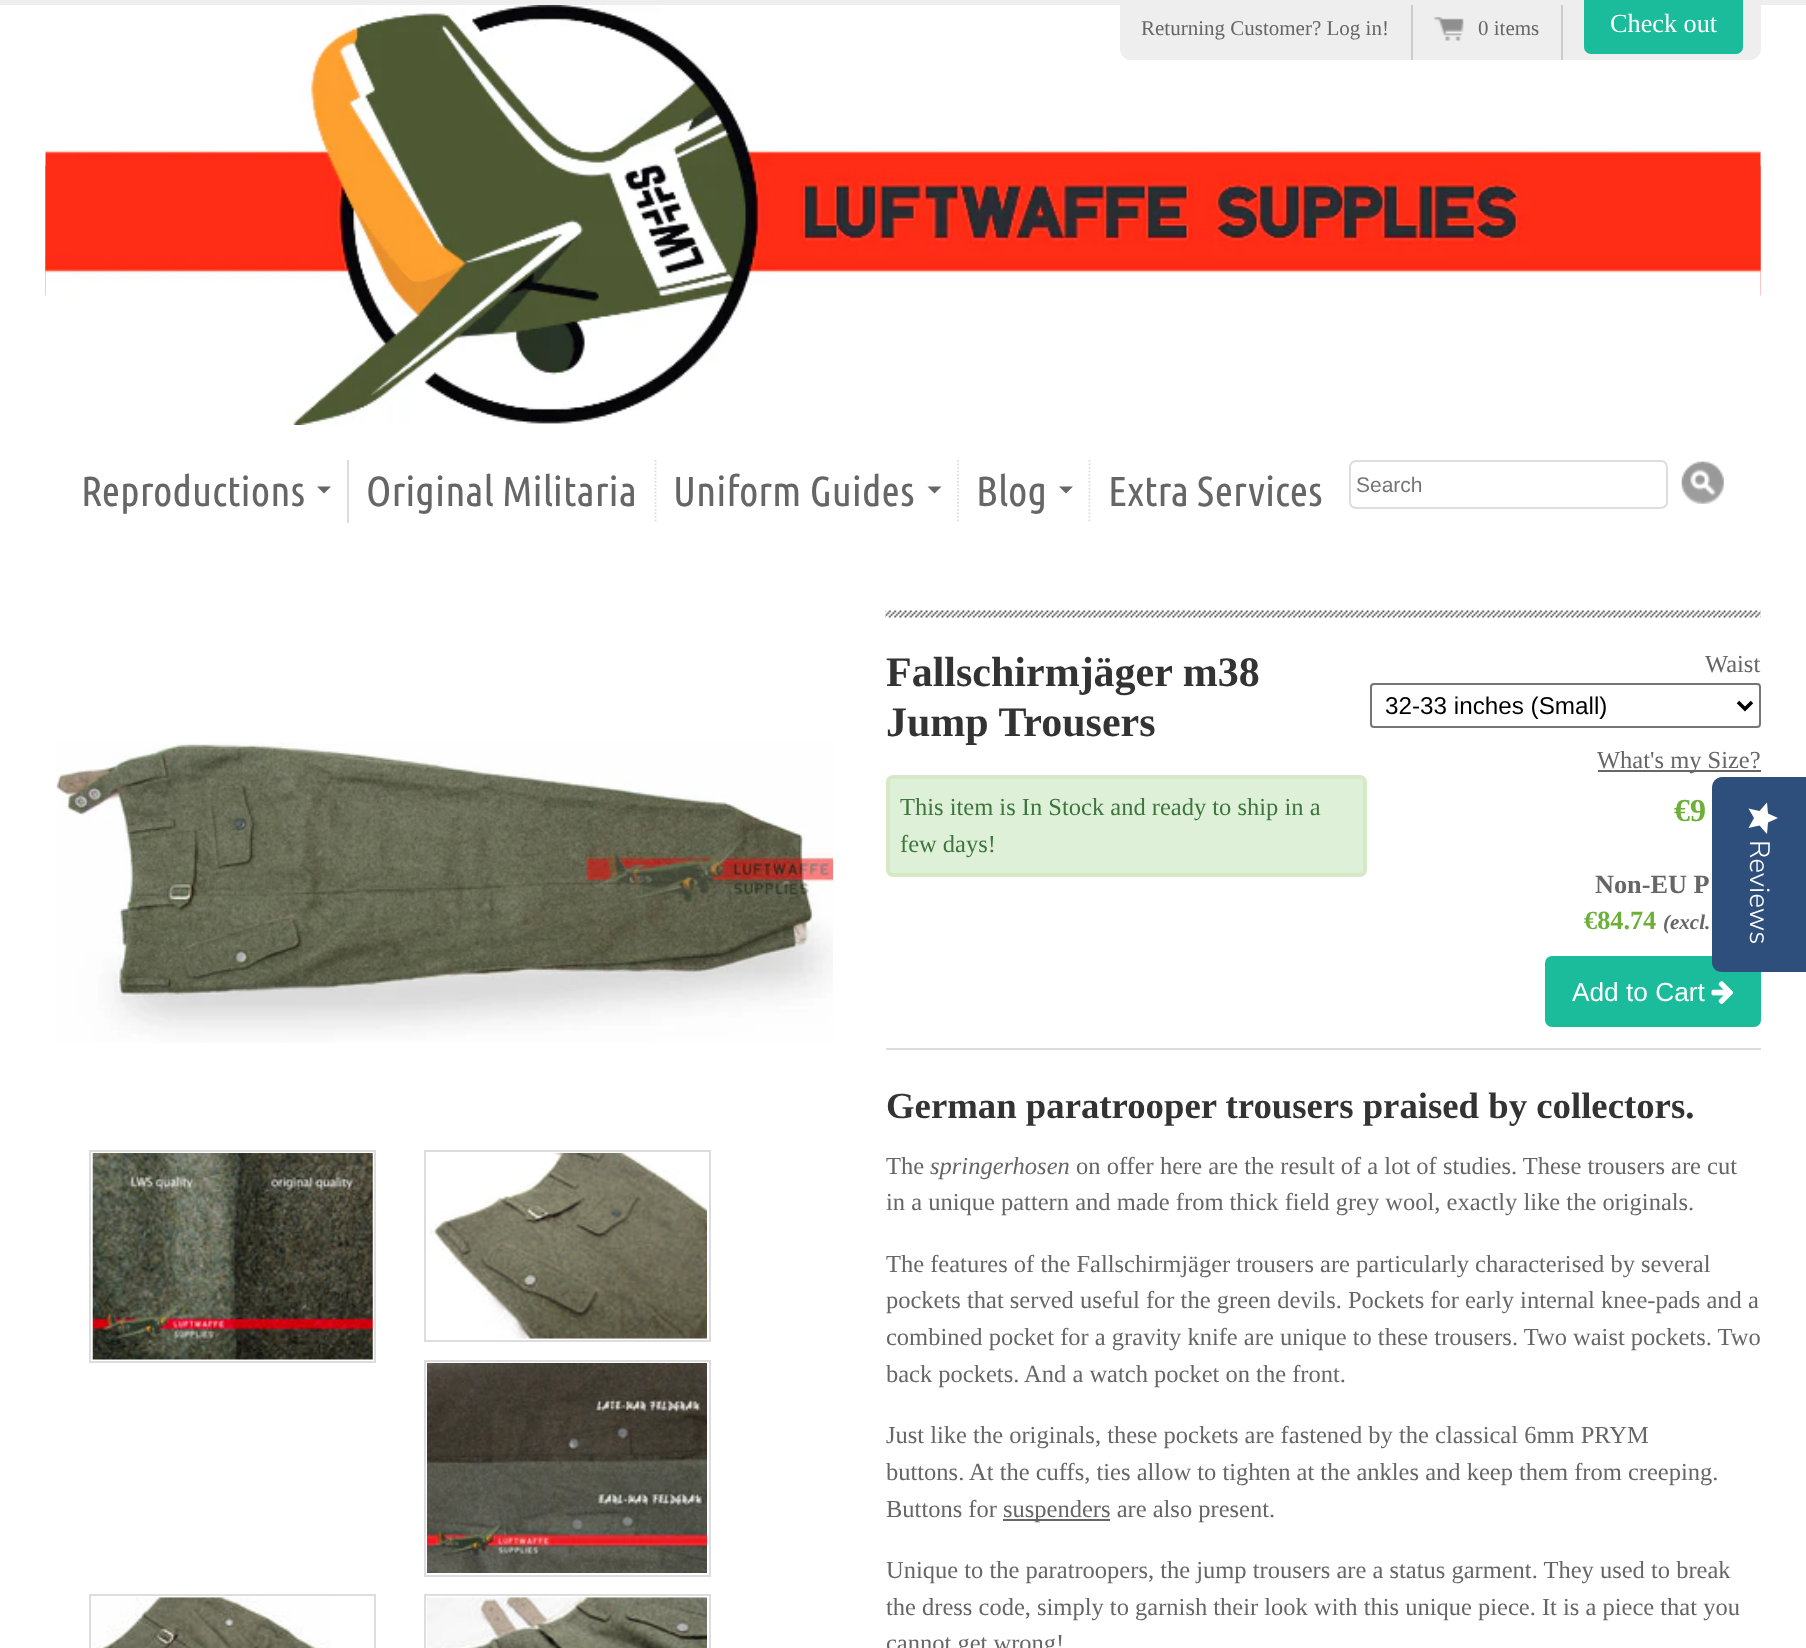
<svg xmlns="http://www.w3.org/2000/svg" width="1806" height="1648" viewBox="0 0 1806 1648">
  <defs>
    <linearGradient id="g1" gradientUnits="userSpaceOnUse" x1="1778" y1="802" x2="1778" y2="834"><stop offset="1" stop-color="#fff"/><stop offset="1" stop-color="#eaeaea"/></linearGradient>
  </defs>
  <rect width="100%" height="100%" fill="#fff"/>
  <path d="M0 0h1806v5H0z" fill="#eee"/>
  <image x="45" y="165" width="1716" height="131" href="img/1.png"/>
  <image x="45" y="5" width="1716" height="420" href="img/2.png"/>
  <path d="M1120 5H1761V49C1761 55 1756 60 1750 60H1131C1125 60 1120 55 1120 49Z" fill="#eee"/>
  <path d="M1411 5h2v55H1411z" fill="#ccc"/>
  <path d="M1561 5h2v55H1561z" fill="#ccc"/>
  <image x="1433" y="17" width="31" height="25" href="img/3.png"/>
  <rect x="1584" y="-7" width="159" height="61" rx="7" fill="#1abc9c"/>
  <path d="M347 460h2v63H347z" fill="#ddd"/>
  <path d="M317 486.5H331L324 493.5Z" fill="#666"/>
  <path d="M655.5 460V523" fill="none" stroke="#ddd" stroke-width="1.8" stroke-dasharray="1.75 1.75"/>
  <path d="M958 460V523" fill="none" stroke="#ddd" stroke-width="1.8" stroke-dasharray="1.75 1.75"/>
  <path d="M927.5 486.5H941.5L934.5 493.5Z" fill="#666"/>
  <path d="M1089.5 460V523" fill="none" stroke="#ddd" stroke-width="1.8" stroke-dasharray="1.75 1.75"/>
  <path d="M1059 486.5H1073L1066 493.5Z" fill="#666"/>
  <rect x="1350" y="461" width="317" height="47" rx="6" fill="none" stroke="#ddd" stroke-width="2"/>
  <image x="1681" y="461" width="43" height="43" href="img/4.png"/>
  <image x="56" y="742" width="777" height="301" href="img/5.png"/>
  <path d="M90 1151h285v211H90z" fill="none" stroke="#ddd" stroke-width="2"/>
  <image x="92" y="1153" width="281" height="207" href="img/6.png"/>
  <path d="M425 1151h285v190H425z" fill="none" stroke="#ddd" stroke-width="2"/>
  <image x="427" y="1153" width="280" height="186" href="img/7.png"/>
  <path d="M425 1361h285v215H425z" fill="none" stroke="#ddd" stroke-width="2"/>
  <image x="427" y="1363" width="280" height="210" href="img/8.png"/>
  <path d="M90 1595h285v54H90z" fill="none" stroke="#ddd" stroke-width="2"/>
  <image x="93" y="1597" width="238" height="51" href="img/9.png"/>
  <path d="M425 1595h285v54H425z" fill="none" stroke="#ddd" stroke-width="2"/>
  <image x="427" y="1597" width="280" height="51" href="img/10.png"/>
  <image x="885" y="610" width="876" height="8" href="img/11.png"/>
  <path d="M886 1048h875v2H886z" fill="#ddd"/>
  <rect x="888" y="777" width="477" height="98" rx="5" fill="#dff0d8" stroke="#d6e9c6" stroke-width="4"/>
  <rect x="1371" y="684" width="389" height="43" rx="3" fill="none" stroke="#767676" stroke-width="2"/>
  <path d="M1738 702L1745 709L1752 702" fill="none" stroke="#000" stroke-width="3.5"/>
  <path d="M1598 770h163v2H1598z" fill="#666"/>
  <rect x="1545" y="956" width="216" height="71" rx="7" fill="#1abc9c"/>
  <image x="1711" y="981" width="22" height="23" href="img/12.png"/>
  <path d="M1003 1519h107v2H1003z" fill="#666"/>
  <path d="M1806 777V972H1722C1716 972 1712 968 1712 962V788C1712 782 1716 777 1722 777Z" fill="#2e4f7c"/>
  <path d="M1754 818L1748.5 828L1759.5 825.5L1767 834L1768 822.5L1778 818L1768 813.5L1767 802.5L1759.5 811L1748.5 808.5Z" fill="url(#g1)"/>
  <g font-family="Liberation Serif" font-size="21" fill="#666">
    <text x="1141" y="35">Returning Customer? Log in!</text>
    <text x="1478" y="35">0 items</text>
  </g>
  <text x="1610" y="32" font-family="Liberation Serif" font-size="26.25" fill="#fff">Check out</text>
  <g font-family="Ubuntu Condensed" font-size="42" fill="#666">
    <text x="81" y="506">Reproductions</text>
    <text x="366" y="506">Original Militaria</text>
    <text x="673" y="506">Uniform Guides</text>
    <text x="976" y="506">Blog</text>
    <text x="1108" y="506">Extra Services</text>
  </g>
  <text x="1356" y="492" font-family="Liberation Sans" font-size="21" fill="#757575">Search</text>
  <g font-family="Liberation Serif" font-size="42" font-weight="bold" fill="#333">
    <text x="886" y="686">Fallschirmjäger m38</text>
    <text x="886" y="736">Jump Trousers</text>
  </g>
  <g font-family="Liberation Serif" font-size="24.5" fill="#3c763d">
    <text x="900" y="815">This item is In Stock and ready to ship in a</text>
    <text x="900" y="852">few days!</text>
  </g>
  <text x="1705" y="672" font-family="Liberation Serif" font-size="24.5" fill="#666">Waist</text>
  <text x="1385" y="714" font-family="Liberation Sans" font-size="24.25" fill="#000">32-33 inches (Small)</text>
  <text x="1597" y="768" font-family="Liberation Serif" font-size="24.5" fill="#666">What's my Size?</text>
  <text x="1674" y="821" font-family="Liberation Serif" font-size="32" font-weight="bold" fill="#6db038">€9</text>
  <text x="1595" y="893" font-family="Liberation Serif" font-size="26.25" font-weight="bold" fill="#666">Non-EU P</text>
  <text x="1584" y="929" font-family="Liberation Serif" font-size="26.25" font-weight="bold" fill="#6db038">€84.74</text>
  <text x="1663" y="929" font-family="Liberation Serif" font-size="21" font-weight="bold" font-style="italic" fill="#666">(excl.</text>
  <text x="1572" y="1001" font-family="Liberation Sans" font-size="26.25" fill="#fff">Add to Cart</text>
  <text x="886" y="1118" font-family="Liberation Serif" font-size="36.75" font-weight="bold" fill="#333">German paratrooper trousers praised by collectors.</text>
  <text x="886" y="1174" font-family="Liberation Serif" font-size="24.5" fill="#666">The</text>
  <text x="930" y="1174" font-family="Liberation Serif" font-size="24.5" font-style="italic" fill="#666">springerhosen</text>
  <g font-family="Liberation Serif" font-size="24.5" fill="#666">
    <text x="1076" y="1174">on offer here are the result of a lot of studies. These trousers are cut</text>
    <text x="886" y="1210">in a unique pattern and made from thick field grey wool, exactly like the originals.</text>
    <text x="886" y="1272">The features of the Fallschirmjäger trousers are particularly characterised by several</text>
    <text x="886" y="1308">pockets that served useful for the green devils. Pockets for early internal knee-pads and a</text>
    <text x="886" y="1345">combined pocket for a gravity knife are unique to these trousers. Two waist pockets. Two</text>
    <text x="886" y="1382">back pockets. And a watch pocket on the front.</text>
    <text x="886" y="1443">Just like the originals, these pockets are fastened by the classical 6mm PRYM</text>
    <text x="886" y="1480">buttons. At the cuffs, ties allow to tighten at the ankles and keep them from creeping.</text>
    <text x="886" y="1517">Buttons for</text>
    <text x="1003" y="1517">suspenders are also present.</text>
    <text x="886" y="1578">Unique to the paratroopers, the jump trousers are a status garment. They used to break</text>
    <text x="886" y="1615">the dress code, simply to garnish their look with this unique piece. It is a piece that you</text>
    <text x="886" y="1651">cannot get wrong!</text>
  </g>
  <text x="1750" y="840" transform="rotate(90 1750 840)" font-family="Nunito Sans" font-size="28" font-weight="300" fill="#fff">Reviews</text>
</svg>
